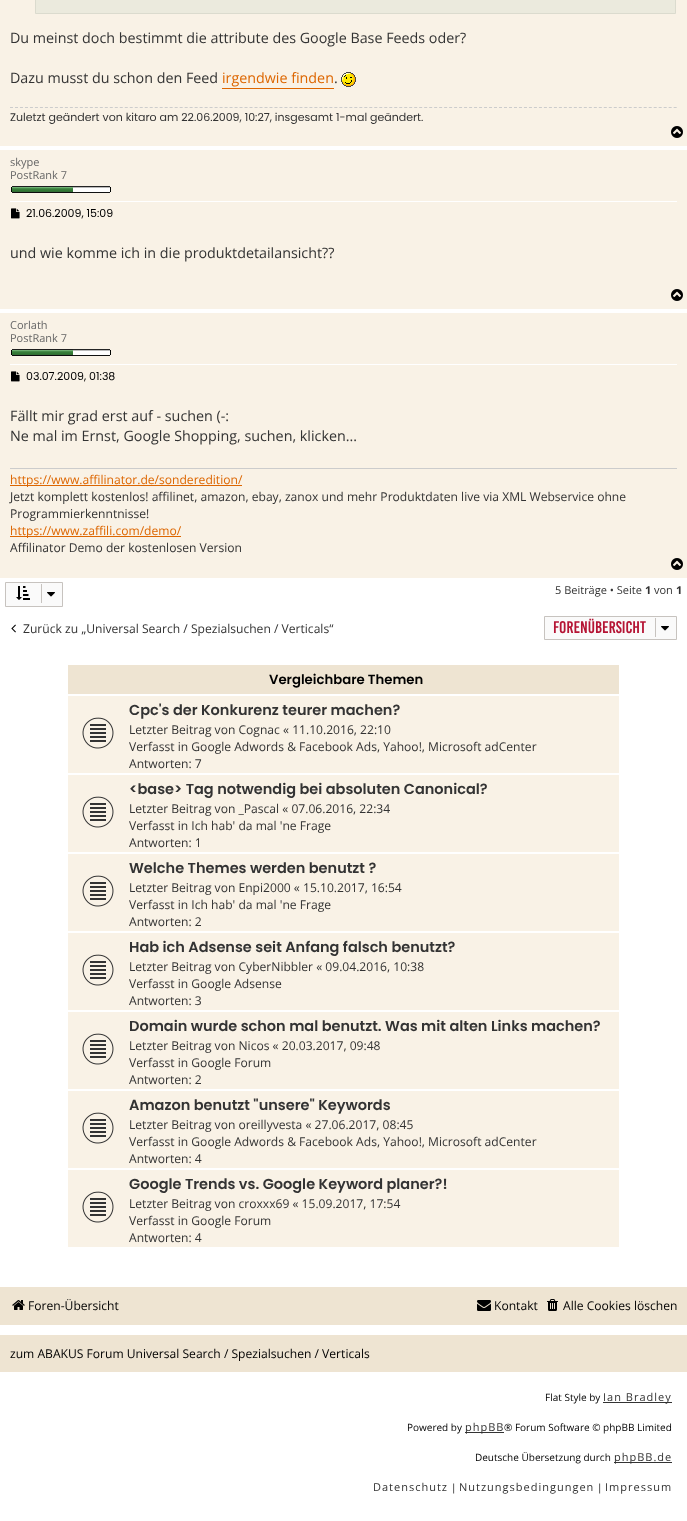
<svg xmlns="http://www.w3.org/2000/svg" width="687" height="1521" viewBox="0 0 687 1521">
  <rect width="100%" height="100%" fill="#fff"/>
  <path d="M0 0h687v146H0z" fill="#f9f2e6"/>
  <path d="M35.5 -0.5h640v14H35.5z" fill="#ebeadd" stroke="#dbdbce"/>
  <path d="M222 88h112v1H222z" fill="#d60"/>
  <image x="341" y="72" width="15" height="15" href="img/1.png"/>
  <path d="M10 107.5H677" fill="none" stroke="#ccc" stroke-dasharray="3 1.99"/>
  <image x="671" y="126" width="12" height="12" href="img/2.png"/>
  <path d="M0 150h687v159H0z" fill="#f9f2e6"/>
  <path d="M10 201h667v1H10z" fill="#fff"/>
  <image x="11" y="186" width="100" height="7" href="img/3.png"/>
  <image x="11" y="208" width="9" height="11" href="img/4.png"/>
  <image x="671" y="289" width="12" height="12" href="img/2.png"/>
  <path d="M0 313h687v265H0z" fill="#f9f2e6"/>
  <path d="M10 364h667v1H10z" fill="#fff"/>
  <image x="11" y="349" width="100" height="7" href="img/3.png"/>
  <image x="11" y="371" width="9" height="11" href="img/4.png"/>
  <path d="M10 468h667v1H10z" fill="#ccc"/>
  <path d="M10 485h232v1H10z" fill="#d60"/>
  <path d="M10 536h171v1H10z" fill="#d60"/>
  <image x="671" y="558" width="12" height="12" href="img/2.png"/>
  <path d="M5.5 582.5h57v24H5.5z" fill="#fafafa" stroke="#c7c3bf"/>
  <image x="16" y="586" width="14" height="14" href="img/5.png"/>
  <path d="M41 584h1v19H41z" fill="#c7c3bf"/>
  <image x="47" y="592" width="8" height="5" href="img/6.png"/>
  <image x="11" y="624" width="5" height="9" href="img/7.png"/>
  <path d="M544.5 616.5h132v23H544.5z" fill="#fafafa" stroke="#c7c3bf"/>
  <path d="M655 618h1v19H655z" fill="#c7c3bf"/>
  <image x="661" y="626" width="8" height="5" href="img/6.png"/>
  <path d="M68 665h551v29H68z" fill="#eee4d2"/>
  <path d="M68 696h551v77H68z" fill="#f9f2e6"/>
  <image x="82" y="717" width="32" height="32" href="img/8.png"/>
  <path d="M68 775h551v77H68z" fill="#f9f2e6"/>
  <image x="82" y="796" width="32" height="32" href="img/8.png"/>
  <path d="M68 854h551v77H68z" fill="#f9f2e6"/>
  <image x="82" y="875" width="32" height="32" href="img/8.png"/>
  <path d="M68 933h551v77H68z" fill="#f9f2e6"/>
  <image x="82" y="954" width="32" height="32" href="img/8.png"/>
  <path d="M68 1012h551v77H68z" fill="#f9f2e6"/>
  <image x="82" y="1033" width="32" height="32" href="img/8.png"/>
  <path d="M68 1091h551v77H68z" fill="#f9f2e6"/>
  <image x="82" y="1112" width="32" height="32" href="img/8.png"/>
  <path d="M68 1170h551v77H68z" fill="#f9f2e6"/>
  <image x="82" y="1191" width="32" height="32" href="img/8.png"/>
  <path d="M0 1287h687v38H0z" fill="#eee4d2"/>
  <image x="12" y="1300" width="13" height="10" href="img/9.png"/>
  <image x="477" y="1300" width="14" height="11" href="img/10.png"/>
  <image x="547" y="1299" width="11" height="12" href="img/11.png"/>
  <path d="M0 1335h687v37H0z" fill="#eee4d2"/>
  <path d="M603 1402h69v1H603z" fill="#333"/>
  <path d="M465 1432h39v1H465z" fill="#333"/>
  <path d="M614 1462h58v1H614z" fill="#333"/>
  <g font-family="Open Sans" font-size="14.3" fill="#333">
    <text x="10" y="43">Du meinst doch bestimmt die attribute des Google Base Feeds oder?</text>
    <text x="10" y="83">Dazu musst du schon den Feed</text>
  </g>
  <text x="222" y="83" font-family="Open Sans" font-size="14.3" fill="#d60">irgendwie finden</text>
  <text x="334" y="83" font-family="Open Sans" font-size="14.3" fill="#333">.</text>
  <text x="10" y="121" font-family="Poppins" font-size="11" fill="#333">Zuletzt geändert von kitaro am 22.06.2009, 10:27, insgesamt 1-mal geändert.</text>
  <g font-family="Open Sans" font-size="11" fill="#666">
    <text x="10" y="166">skype</text>
    <text x="10" y="179">PostRank 7</text>
  </g>
  <text x="26" y="217" font-family="Poppins" font-size="11" fill="#000">21.06.2009, 15:09</text>
  <text x="10" y="258" font-family="Open Sans" font-size="14.3" fill="#333">und wie komme ich in die produktdetailansicht??</text>
  <g font-family="Open Sans" font-size="11" fill="#666">
    <text x="10" y="329">Corlath</text>
    <text x="10" y="342">PostRank 7</text>
  </g>
  <text x="26" y="380" font-family="Poppins" font-size="11" fill="#000">03.07.2009, 01:38</text>
  <g font-family="Open Sans" font-size="14.3" fill="#333">
    <text x="10" y="421">Fällt mir grad erst auf - suchen (-:</text>
    <text x="10" y="441">Ne mal im Ernst, Google Shopping, suchen, klicken...</text>
  </g>
  <text x="10" y="484" font-family="Open Sans" font-size="12.1" fill="#d60">https://www.affilinator.de/sonderedition/</text>
  <g font-family="Open Sans" font-size="12.1" fill="#333">
    <text x="10" y="501">Jetzt komplett kostenlos! affilinet, amazon, ebay, zanox und mehr Produktdaten live via XML Webservice ohne</text>
    <text x="10" y="518">Programmierkenntnisse!</text>
  </g>
  <text x="10" y="535" font-family="Open Sans" font-size="12.1" fill="#d60">https://www.zaffili.com/demo/</text>
  <text x="10" y="552" font-family="Open Sans" font-size="12.1" fill="#333">Affilinator Demo der kostenlosen Version</text>
  <text x="555" y="594" font-family="Open Sans" font-size="11" fill="#333">5 Beiträge • Seite</text>
  <text x="645" y="594" font-family="Open Sans" font-size="11" font-weight="bold" fill="#333">1</text>
  <text x="654" y="594" font-family="Open Sans" font-size="11" fill="#333">von</text>
  <text x="676" y="594" font-family="Open Sans" font-size="11" font-weight="bold" fill="#333">1</text>
  <text x="23" y="633" font-family="Open Sans" font-size="12.1" fill="#333">Zurück zu „Universal Search / Spezialsuchen / Verticals“</text>
  <text x="553" y="633" font-family="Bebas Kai" font-size="13" fill="#b51434">FORENÜBERSICHT</text>
  <text x="269" y="684" font-family="Poppins" font-size="13.25" font-weight="600" fill="#000">Vergleichbare Themen</text>
  <text x="129" y="715" font-family="Poppins" font-size="14.5" font-weight="600" fill="#333">Cpc's der Konkurenz teurer machen?</text>
  <g font-family="Open Sans" font-size="12.1" fill="#333">
    <text x="129" y="734">Letzter Beitrag von Cognac « 11.10.2016, 22:10</text>
    <text x="129" y="751">Verfasst in Google Adwords &amp; Facebook Ads, Yahoo!, Microsoft adCenter</text>
    <text x="129" y="768">Antworten: 7</text>
  </g>
  <text x="129" y="794" font-family="Poppins" font-size="14.5" font-weight="600" fill="#333">&lt;base&gt; Tag notwendig bei absoluten Canonical?</text>
  <g font-family="Open Sans" font-size="12.1" fill="#333">
    <text x="129" y="813">Letzter Beitrag von _Pascal « 07.06.2016, 22:34</text>
    <text x="129" y="830">Verfasst in Ich hab' da mal 'ne Frage</text>
    <text x="129" y="847">Antworten: 1</text>
  </g>
  <text x="129" y="873" font-family="Poppins" font-size="14.5" font-weight="600" fill="#333">Welche Themes werden benutzt ?</text>
  <g font-family="Open Sans" font-size="12.1" fill="#333">
    <text x="129" y="892">Letzter Beitrag von Enpi2000 « 15.10.2017, 16:54</text>
    <text x="129" y="909">Verfasst in Ich hab' da mal 'ne Frage</text>
    <text x="129" y="926">Antworten: 2</text>
  </g>
  <text x="129" y="952" font-family="Poppins" font-size="14.5" font-weight="600" fill="#333">Hab ich Adsense seit Anfang falsch benutzt?</text>
  <g font-family="Open Sans" font-size="12.1" fill="#333">
    <text x="129" y="971">Letzter Beitrag von CyberNibbler « 09.04.2016, 10:38</text>
    <text x="129" y="988">Verfasst in Google Adsense</text>
    <text x="129" y="1005">Antworten: 3</text>
  </g>
  <text x="129" y="1031" font-family="Poppins" font-size="14.5" font-weight="600" fill="#333">Domain wurde schon mal benutzt. Was mit alten Links machen?</text>
  <g font-family="Open Sans" font-size="12.1" fill="#333">
    <text x="129" y="1050">Letzter Beitrag von Nicos « 20.03.2017, 09:48</text>
    <text x="129" y="1067">Verfasst in Google Forum</text>
    <text x="129" y="1084">Antworten: 2</text>
  </g>
  <text x="129" y="1110" font-family="Poppins" font-size="14.5" font-weight="600" fill="#333">Amazon benutzt "unsere" Keywords</text>
  <g font-family="Open Sans" font-size="12.1" fill="#333">
    <text x="129" y="1129">Letzter Beitrag von oreillyvesta « 27.06.2017, 08:45</text>
    <text x="129" y="1146">Verfasst in Google Adwords &amp; Facebook Ads, Yahoo!, Microsoft adCenter</text>
    <text x="129" y="1163">Antworten: 4</text>
  </g>
  <text x="129" y="1189" font-family="Poppins" font-size="14.5" font-weight="600" fill="#333">Google Trends vs. Google Keyword planer?!</text>
  <g font-family="Open Sans" font-size="12.1" fill="#333">
    <text x="129" y="1208">Letzter Beitrag von croxxx69 « 15.09.2017, 17:54</text>
    <text x="129" y="1225">Verfasst in Google Forum</text>
    <text x="129" y="1242">Antworten: 4</text>
  </g>
  <g font-family="Open Sans" font-size="12.1" fill="#000">
    <text x="28" y="1310">Foren-Übersicht</text>
    <text x="494" y="1310">Kontakt</text>
    <text x="563" y="1310">Alle Cookies löschen</text>
    <text x="10" y="1358">zum ABAKUS Forum Universal Search / Spezialsuchen / Verticals</text>
  </g>
  <text x="545" y="1401" font-family="Open Sans" font-size="10" fill="#000">Flat Style by</text>
  <text x="603" y="1401" font-family="Open Sans" font-size="11" letter-spacing="1" fill="#333">Ian Bradley</text>
  <text x="407" y="1431" font-family="Open Sans" font-size="10" fill="#000">Powered by</text>
  <text x="465" y="1431" font-family="Open Sans" font-size="11" letter-spacing="1" fill="#333">phpBB</text>
  <g font-family="Open Sans" font-size="10" fill="#000">
    <text x="504" y="1431">® Forum Software © phpBB Limited</text>
    <text x="475" y="1461">Deutsche Übersetzung durch</text>
  </g>
  <g font-family="Open Sans" font-size="11" letter-spacing="1" fill="#333">
    <text x="614" y="1461">phpBB.de</text>
    <text x="373" y="1491">Datenschutz</text>
  </g>
  <text x="451" y="1491" font-family="Open Sans" font-size="10" fill="#000">|</text>
  <text x="459" y="1491" font-family="Open Sans" font-size="11" letter-spacing="1" fill="#333">Nutzungsbedingungen</text>
  <text x="597" y="1491" font-family="Open Sans" font-size="10" fill="#000">|</text>
  <text x="605" y="1491" font-family="Open Sans" font-size="11" letter-spacing="1" fill="#333">Impressum</text>
</svg>
